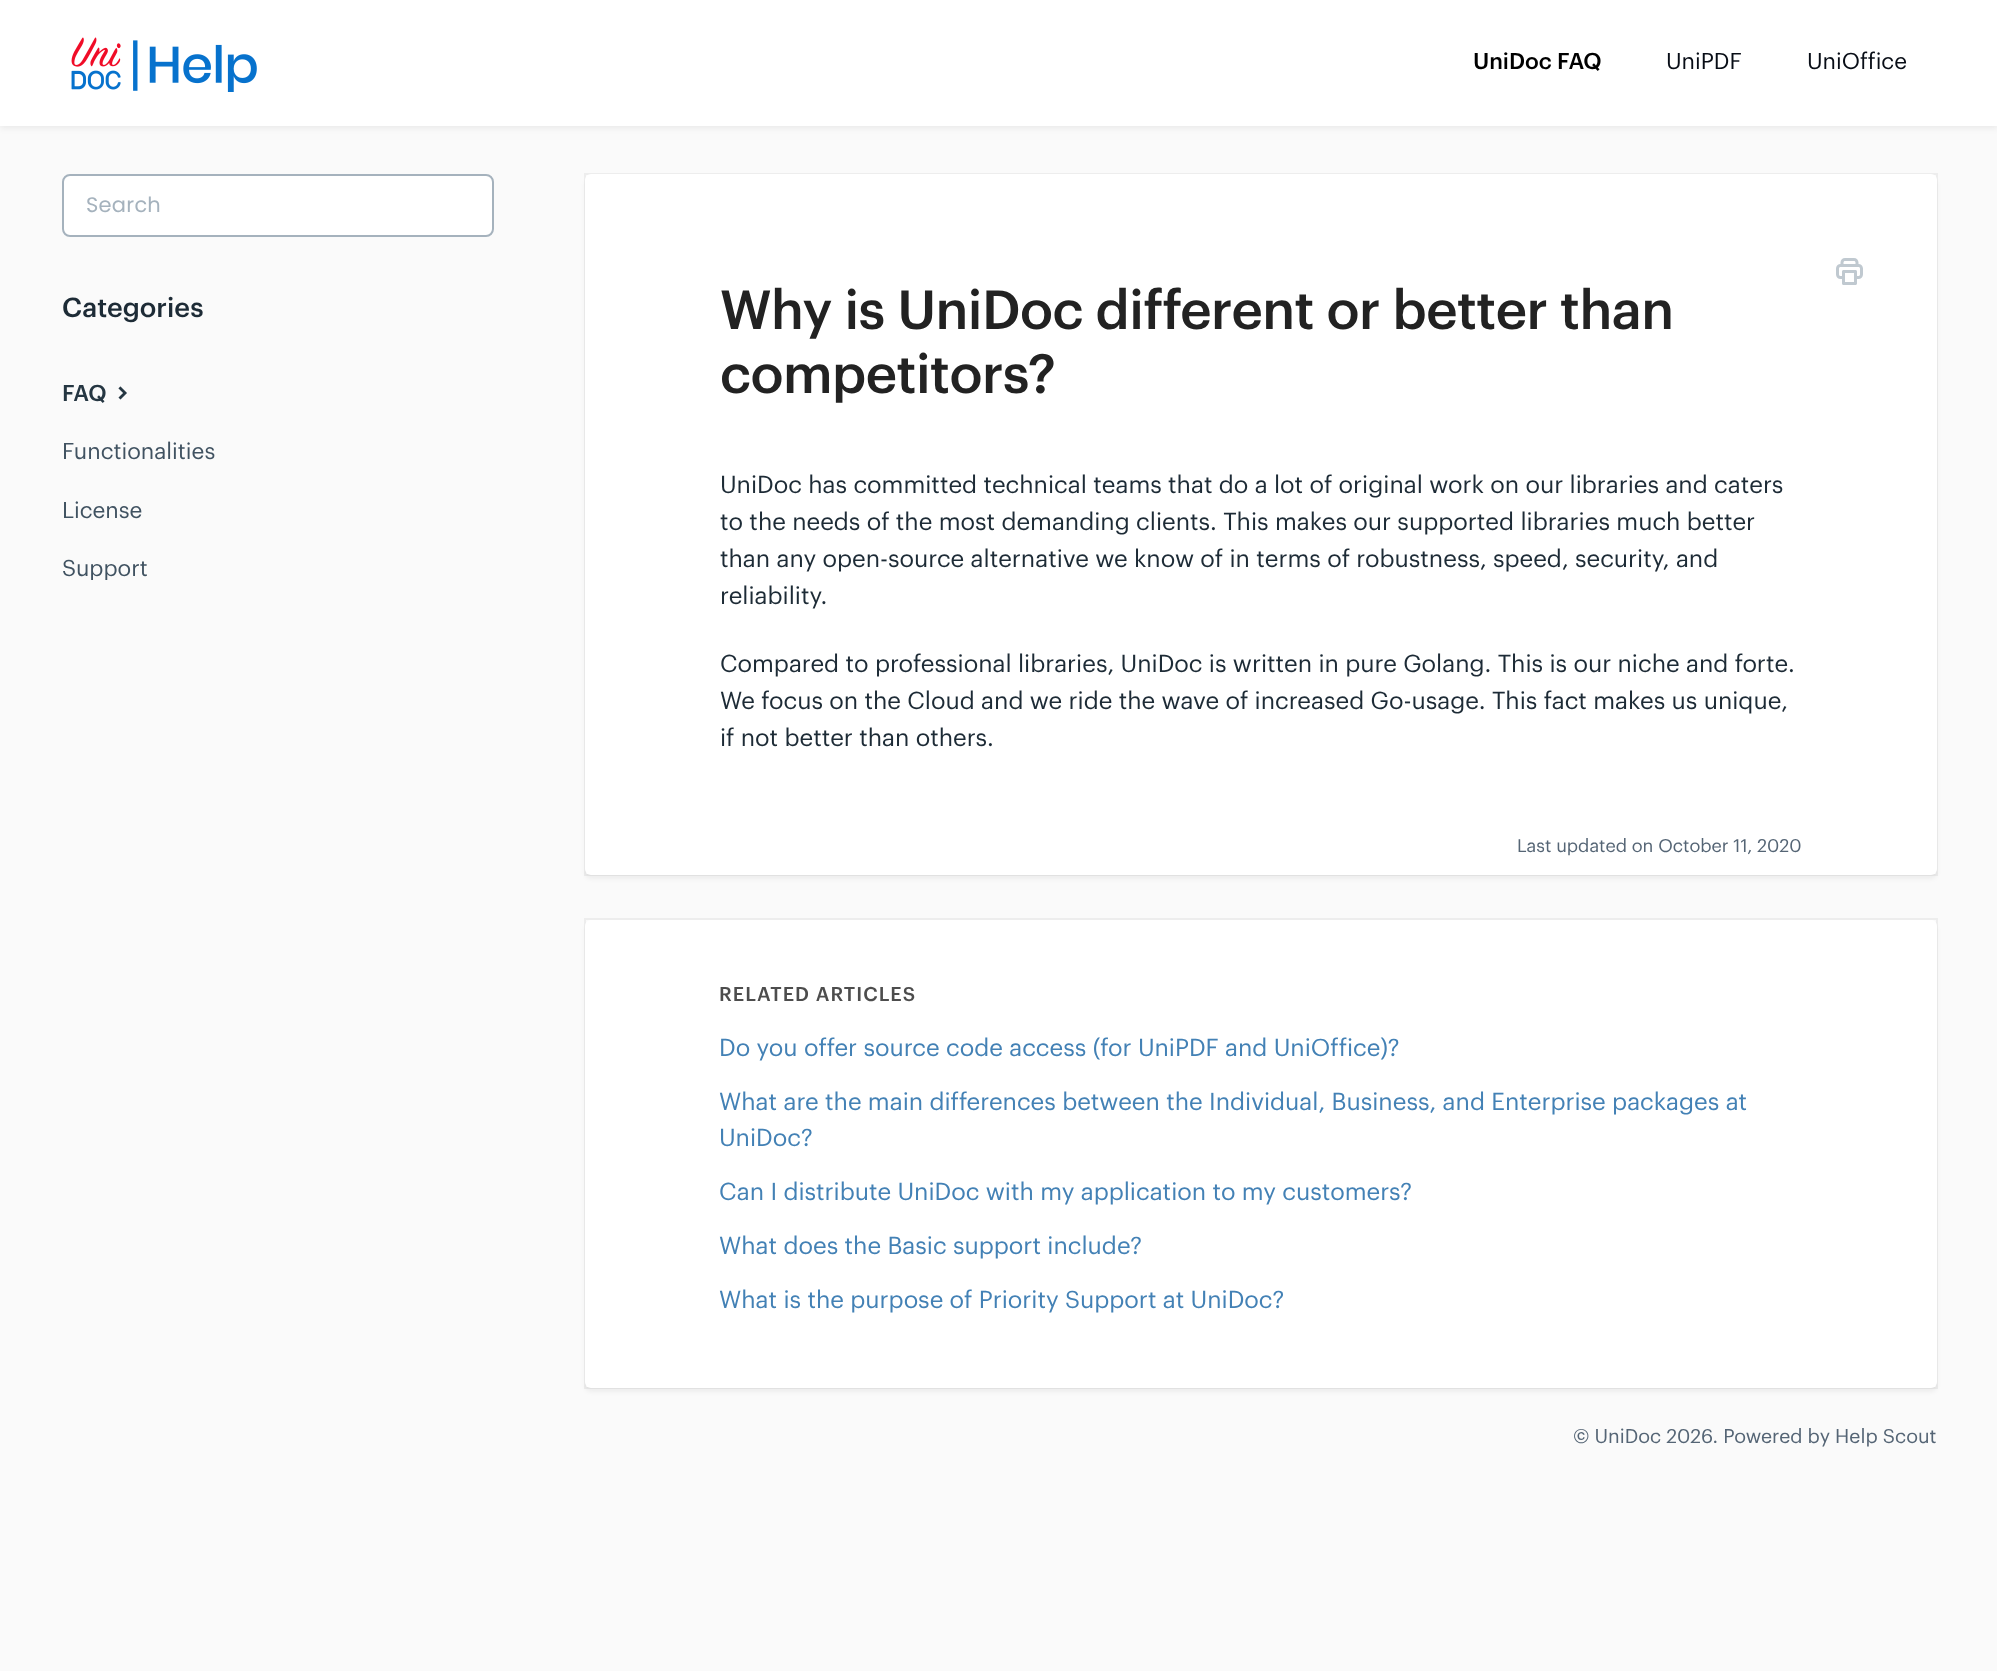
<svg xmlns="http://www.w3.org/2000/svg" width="1997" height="1671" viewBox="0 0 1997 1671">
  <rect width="100%" height="100%" fill="#fafafa"/>
  <path d="M0 2h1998v126H0z" fill="#00000012" filter="blur(3px)"/>
  <path d="M0 0h1997v126H0z" fill="#fff"/>
  <image x="71" y="37" width="186" height="55" href="img/1.png"/>
  <rect x="63" y="175" width="430" height="61" rx="7" fill="#fff" stroke="#a5b2bd" stroke-width="2"/>
  <image x="118" y="386" width="9" height="14" href="img/2.png"/>
  <rect x="585" y="179" width="1352" height="700" rx="6" fill="#0000000d" filter="blur(2px)"/>
  <path d="M585 174h1352v701H585z" fill="none" stroke="#0000000d" stroke-width="2"/>
  <rect x="585" y="174" width="1352" height="701" rx="6" fill="#fff"/>
  <image x="1836" y="258" width="27" height="27" href="img/3.png"/>
  <rect x="585" y="924" width="1352" height="468" rx="6" fill="#0000000d" filter="blur(2px)"/>
  <path d="M585 919h1352v469H585z" fill="none" stroke="#0000000d" stroke-width="2"/>
  <rect x="585" y="920" width="1352" height="468" rx="6" fill="#fff"/>
  <text x="1473" y="69" font-family="Graphik" font-size="22.5" font-weight="500" fill="#000">UniDoc FAQ</text>
  <g font-family="Graphik" font-size="22.5" fill="#080d16">
    <text x="1666" y="69">UniPDF</text>
    <text x="1807" y="69">UniOffice</text>
  </g>
  <text x="86" y="212" font-family="Poppins" font-size="21" letter-spacing="0.25" fill="#a5b2bd">Search</text>
  <text x="62" y="317" font-family="Graphik" font-size="27" font-weight="500" fill="#1d2b36">Categories</text>
  <text x="62" y="401" font-family="Graphik" font-size="22.5" font-weight="500" fill="#253642">FAQ</text>
  <g font-family="Graphik" font-size="22.5" fill="#405261">
    <text x="62" y="459">Functionalities</text>
    <text x="62" y="518">License</text>
    <text x="62" y="576">Support</text>
  </g>
  <g font-family="Graphik" font-size="54" font-weight="500" letter-spacing="-0.5" fill="#222">
    <text x="720" y="329">Why is UniDoc different or better than</text>
    <text x="720" y="393">competitors?</text>
  </g>
  <g font-family="Graphik" font-size="24" fill="#1d2b36">
    <text x="720" y="493">UniDoc has committed technical teams that do a lot of original work on our libraries and caters</text>
    <text x="720" y="530">to the needs of the most demanding clients. This makes our supported libraries much better</text>
    <text x="720" y="567">than any open-source alternative we know of in terms of robustness, speed, security, and</text>
    <text x="720" y="604">reliability.</text>
    <text x="720" y="672">Compared to professional libraries, UniDoc is written in pure Golang. This is our niche and forte.</text>
    <text x="720" y="709">We focus on the Cloud and we ride the wave of increased Go-usage. This fact makes us unique,</text>
    <text x="720" y="746">if not better than others.</text>
  </g>
  <text x="1517" y="852" font-family="Graphik" font-size="18" fill="#556575">Last updated on October 11, 2020</text>
  <text x="719" y="1001" font-family="Graphik" font-size="19.5" font-weight="500" letter-spacing="1" fill="#4d4d4d">RELATED ARTICLES</text>
  <g font-family="Graphik" font-size="24" fill="#4381b5">
    <text x="719" y="1056">Do you offer source code access (for UniPDF and UniOffice)?</text>
    <text x="719" y="1110">What are the main differences between the Individual, Business, and Enterprise packages at</text>
    <text x="719" y="1146">UniDoc?</text>
    <text x="719" y="1200">Can I distribute UniDoc with my application to my customers?</text>
    <text x="719" y="1254">What does the Basic support include?</text>
    <text x="719" y="1308">What is the purpose of Priority Support at UniDoc?</text>
  </g>
  <text x="1573" y="1443" font-family="Graphik" font-size="19.5" fill="#556575">© UniDoc 2026. Powered by Help Scout</text>
</svg>
